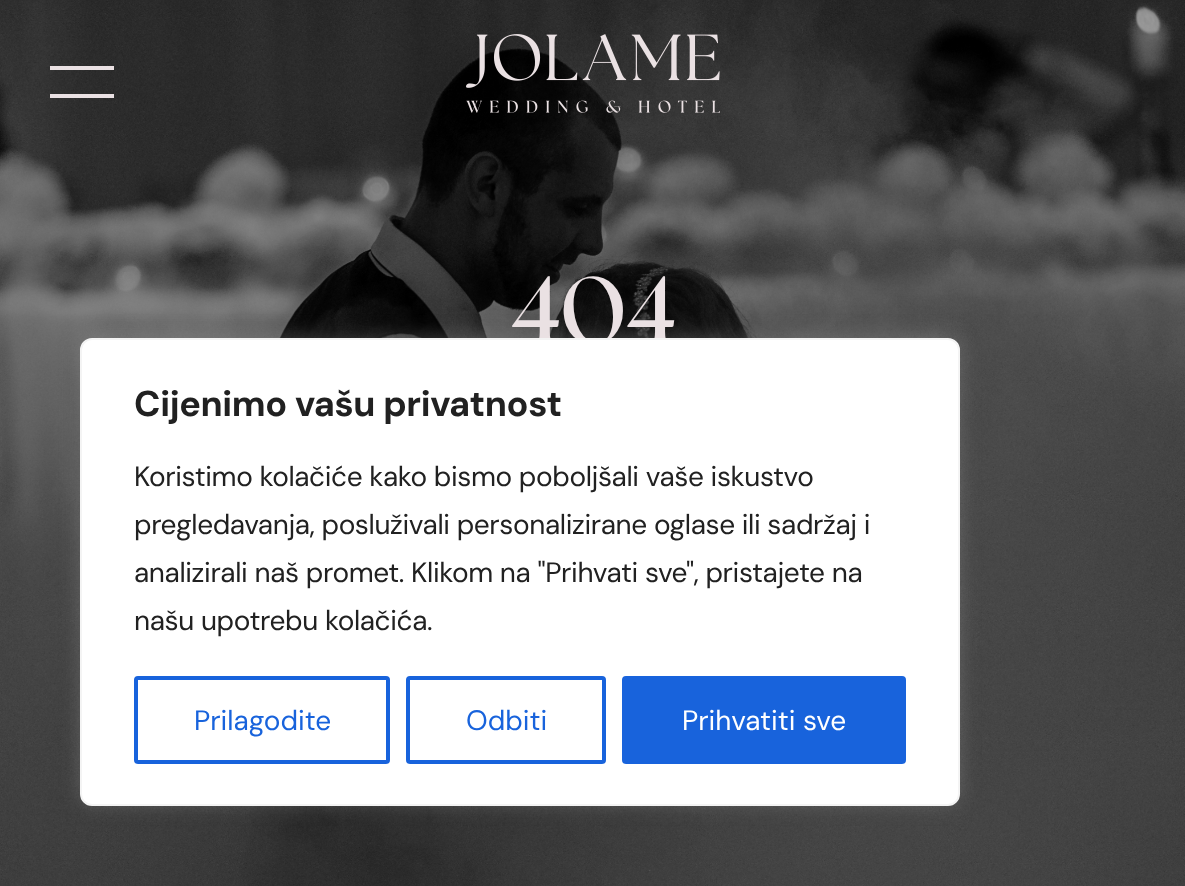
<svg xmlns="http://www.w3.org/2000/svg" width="1185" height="886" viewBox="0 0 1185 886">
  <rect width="100%" height="100%" fill="#fff"/>
  <image x="0" y="0" width="1185" height="886" href="img/2.png"/>
  <path d="M50 66h64v4H50z" fill="#eae1e3"/>
  <path d="M50 94h64v4H50z" fill="#eae1e3"/>
  <image x="466" y="34" width="254" height="79" href="img/1.png"/>
  <rect x="80" y="336" width="880" height="468" rx="12" fill="#acabab4d" filter="blur(10px)"/>
  <text x="511" y="344" font-family="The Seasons" font-size="96" font-weight="bold" fill="#eae1e3">404</text>
  <rect x="81" y="339" width="878" height="466" rx="11" fill="#fff" stroke="#f4f4f4" stroke-width="2"/>
  <text x="134" y="416" font-family="DM Sans" font-size="36" font-weight="bold" letter-spacing="-0.38" fill="#212121">Cijenimo vašu privatnost</text>
  <g font-family="DM Sans" font-size="28" letter-spacing="-0.38" fill="#212121">
    <text x="134" y="486">Koristimo kolačiće kako bismo poboljšali vaše iskustvo</text>
    <text x="134" y="534">pregledavanja, posluživali personalizirane oglase ili sadržaj i</text>
    <text x="134" y="582">analizirali naš promet. Klikom na "Prihvati sve", pristajete na</text>
    <text x="134" y="630">našu upotrebu kolačića.</text>
  </g>
  <rect x="136" y="678" width="252" height="84" rx="2" fill="none" stroke="#1863dc" stroke-width="4"/>
  <text x="194" y="730" font-family="DM Sans" font-size="28" fill="#1863dc">Prilagodite</text>
  <rect x="408" y="678" width="196" height="84" rx="2" fill="none" stroke="#1863dc" stroke-width="4"/>
  <text x="466" y="730" font-family="DM Sans" font-size="28" fill="#1863dc">Odbiti</text>
  <rect x="624" y="678" width="280" height="84" rx="2" fill="#1863dc" stroke="#1863dc" stroke-width="4"/>
  <text x="682" y="730" font-family="DM Sans" font-size="28" fill="#fff">Prihvatiti sve</text>
</svg>
